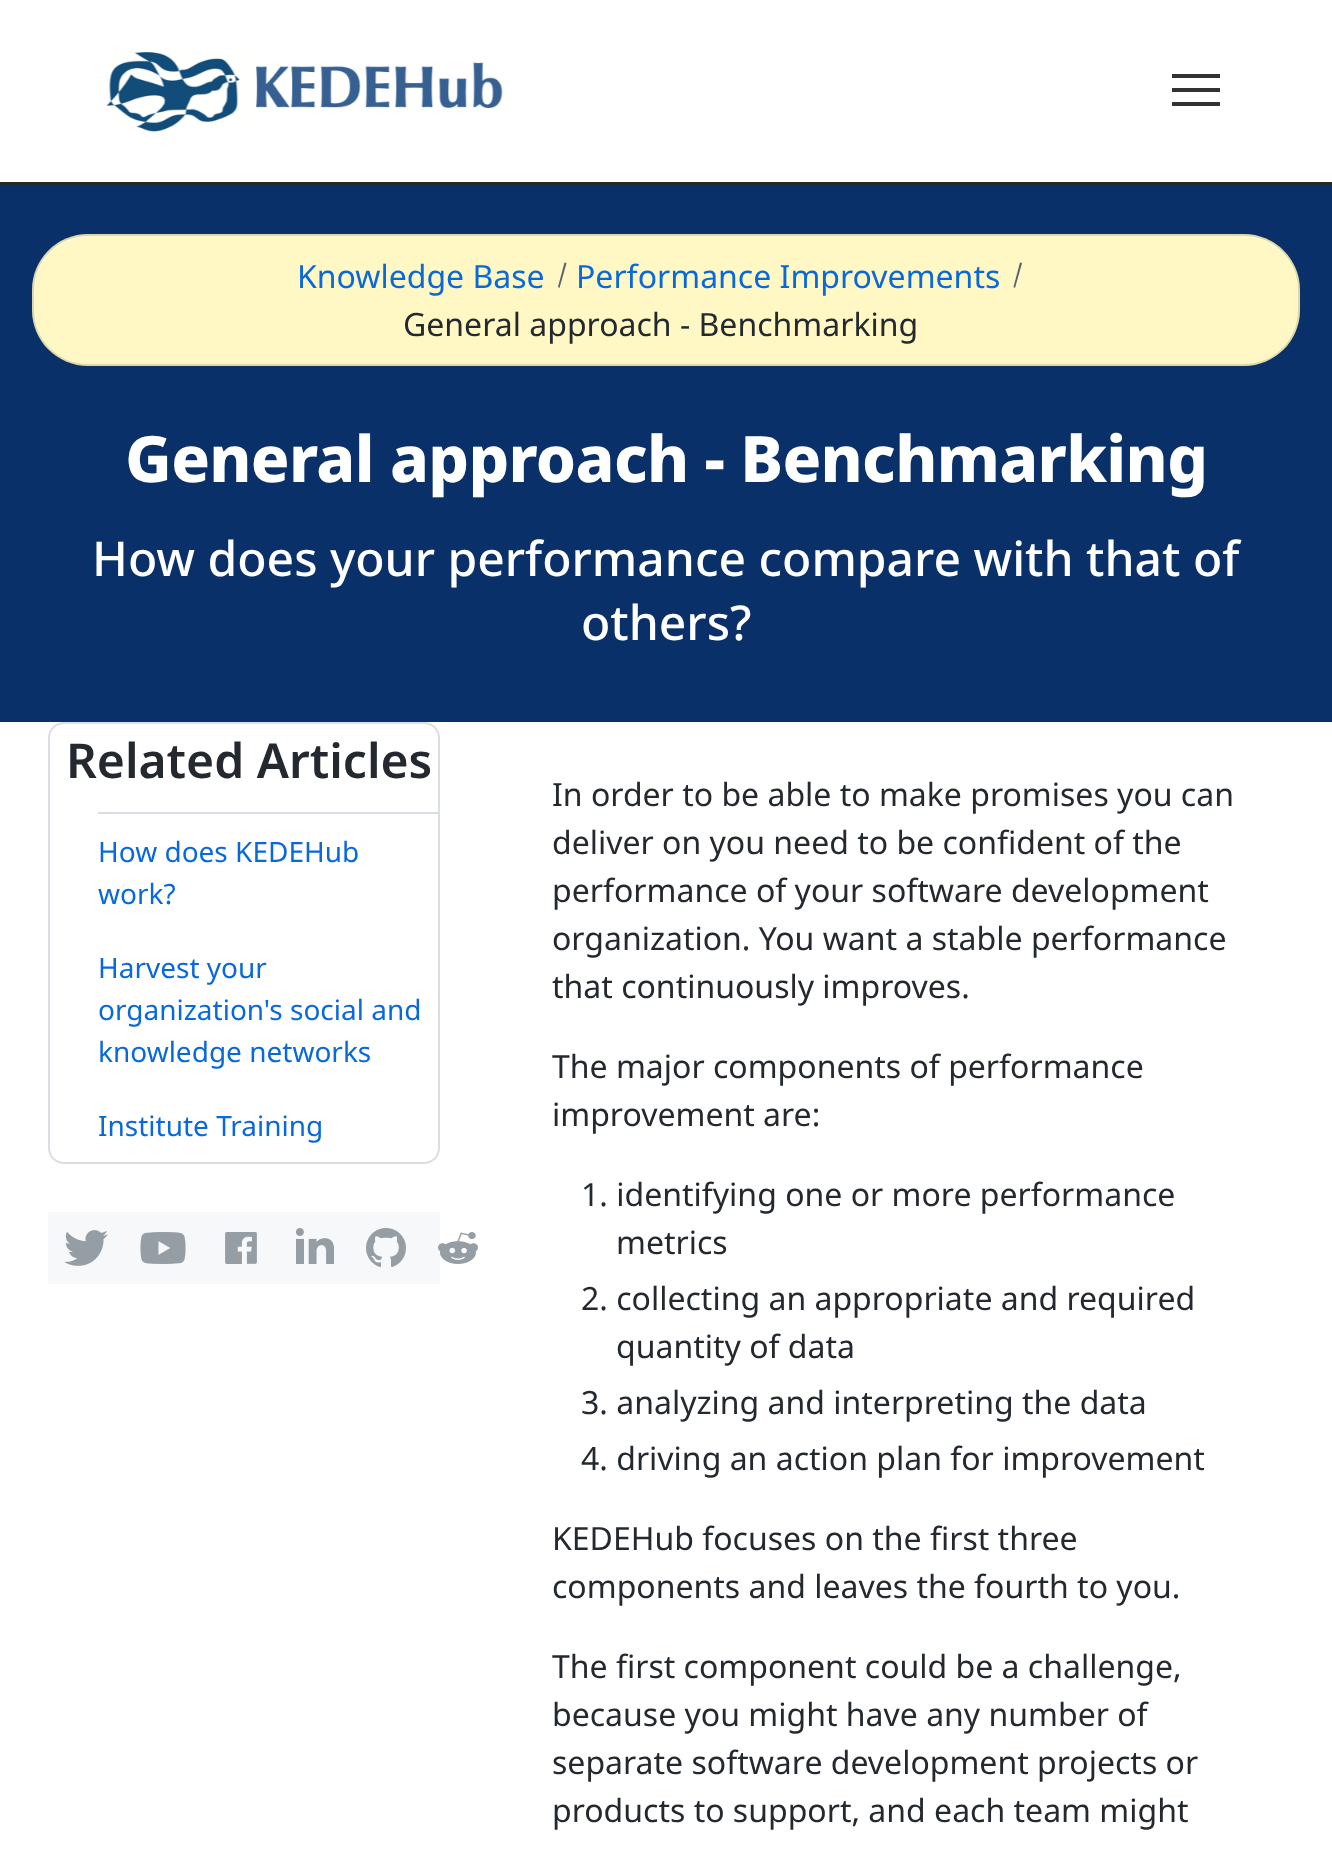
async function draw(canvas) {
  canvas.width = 1332;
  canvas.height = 1861;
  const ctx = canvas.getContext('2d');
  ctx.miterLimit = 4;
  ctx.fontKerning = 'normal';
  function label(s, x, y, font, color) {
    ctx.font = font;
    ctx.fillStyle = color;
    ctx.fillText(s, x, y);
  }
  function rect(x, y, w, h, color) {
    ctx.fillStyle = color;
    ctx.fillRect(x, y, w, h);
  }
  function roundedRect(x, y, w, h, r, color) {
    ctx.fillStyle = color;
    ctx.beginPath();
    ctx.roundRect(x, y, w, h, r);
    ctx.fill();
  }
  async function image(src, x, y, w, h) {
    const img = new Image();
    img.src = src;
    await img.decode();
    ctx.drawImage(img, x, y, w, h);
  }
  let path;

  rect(0, 0, 1332, 1861, '#fff');
  rect(0, 182, 1332, 4, '#24292f');
  await image('assets/img1.png', 106, 52, 397, 80);
  rect(1172, 74, 48, 4, '#333');
  rect(1172, 88, 48, 4, '#333');
  rect(1172, 102, 48, 4, '#333');
  rect(0, 186, 1332, 536, '#0a3069');
  ctx.fillStyle = '#0b2f66';
  path = new Path2D('M32 310V312C32 343 57 368 88 368H1244C1275 368 1300 343 1300 312V310C1300 341 1275 366 1244 366H88C57 366 32 341 32 310Z');
  ctx.fill(path);
  roundedRect(32, 234, 1268, 132, 56, '#fff8c5');
  ctx.fillStyle = '#fffad4';
  path = new Path2D('M88 238H1244C1274 238 1298 262 1298 292V290C1298 260 1274 236 1244 236H88C58 236 34 260 34 290V292C34 262 58 238 88 238Z');
  ctx.fill(path);
  ctx.beginPath();
  ctx.roundRect(33, 235, 1266, 130, 55);
  ctx.strokeStyle = '#1b1f2426';
  ctx.lineWidth = 2;
  ctx.stroke();
  label('Knowledge Base', 297, 288, '32px Noto Sans', '#0969da');
  ctx.fillStyle = '#57606a';
  path = new Path2D('M564.5 262.5L566.5 263L559.5 288L558 287Z');
  ctx.fill(path);
  label('Performance Improvements', 576, 288, '32px Noto Sans', '#0969da');
  ctx.fillStyle = '#57606a';
  path = new Path2D('M1020 262.5L1022 263L1015 288L1013.5 287Z');
  ctx.fill(path);
  label('General approach - Benchmarking', 403, 336, '32px Noto Sans', '#24292f');
  ctx.letterSpacing = '-0.65px';
  label('General approach - Benchmarking', 125, 482, '800 64px Noto Sans', '#fff');
  ctx.letterSpacing = '0px';
  label('How does your performance compare with that of', 92, 576, '500 48px Noto Sans', '#fff');
  label('others?', 581, 640, '500 48px Noto Sans', '#fff');
  ctx.beginPath();
  ctx.roundRect(49, 723, 390, 440, 15);
  ctx.strokeStyle = '#d8dee4';
  ctx.stroke();
  label('Related Articles', 66, 778, '600 48px Noto Sans', '#24292f');
  rect(98, 812, 340, 2, '#d8dee4');
  label('How does KEDEHub', 98, 862, '28px Noto Sans', '#0969da');
  label('work?', 98, 904, '28px Noto Sans', '#0969da');
  label('Harvest your', 98, 978, '28px Noto Sans', '#0969da');
  label('organization\'s social and', 98, 1020, '28px Noto Sans', '#0969da');
  label('knowledge networks', 98, 1062, '28px Noto Sans', '#0969da');
  label('Institute Training', 98, 1136, '28px Noto Sans', '#0969da');
  rect(48, 1212, 392, 72, '#f6f8fa');
  await image('assets/img2.png', 64, 1230, 44, 36);
  await image('assets/img3.png', 140, 1232, 46, 32);
  await image('assets/img4.png', 225, 1232, 32, 32);
  await image('assets/img5.png', 296, 1228, 38, 36);
  await image('assets/img6.png', 366, 1228, 40, 39);
  await image('assets/img7.png', 438, 1232, 40, 32);
  label('In order to be able to make promises you can', 552, 806, '32px Noto Sans', '#24292f');
  label('deliver on you need to be confident of the', 552, 854, '32px Noto Sans', '#24292f');
  label('performance of your software development', 552, 902, '32px Noto Sans', '#24292f');
  label('organization. You want a stable performance', 552, 950, '32px Noto Sans', '#24292f');
  label('that continuously improves.', 552, 998, '32px Noto Sans', '#24292f');
  label('The major components of performance', 552, 1078, '32px Noto Sans', '#24292f');
  label('improvement are:', 552, 1126, '32px Noto Sans', '#24292f');
  label('1. identifying one or more performance', 581, 1206, '32px Noto Sans', '#24292f');
  label('metrics', 616, 1254, '32px Noto Sans', '#24292f');
  label('2. collecting an appropriate and required', 581, 1310, '32px Noto Sans', '#24292f');
  label('quantity of data', 616, 1358, '32px Noto Sans', '#24292f');
  label('3. analyzing and interpreting the data', 581, 1414, '32px Noto Sans', '#24292f');
  label('4. driving an action plan for improvement', 581, 1470, '32px Noto Sans', '#24292f');
  label('KEDEHub focuses on the first three', 552, 1550, '32px Noto Sans', '#24292f');
  label('components and leaves the fourth to you.', 552, 1598, '32px Noto Sans', '#24292f');
  label('The first component could be a challenge,', 552, 1678, '32px Noto Sans', '#24292f');
  label('because you might have any number of', 552, 1726, '32px Noto Sans', '#24292f');
  label('separate software development projects or', 552, 1774, '32px Noto Sans', '#24292f');
  label('products to support, and each team might', 552, 1822, '32px Noto Sans', '#24292f');
}

draw(document.querySelector('canvas'));
